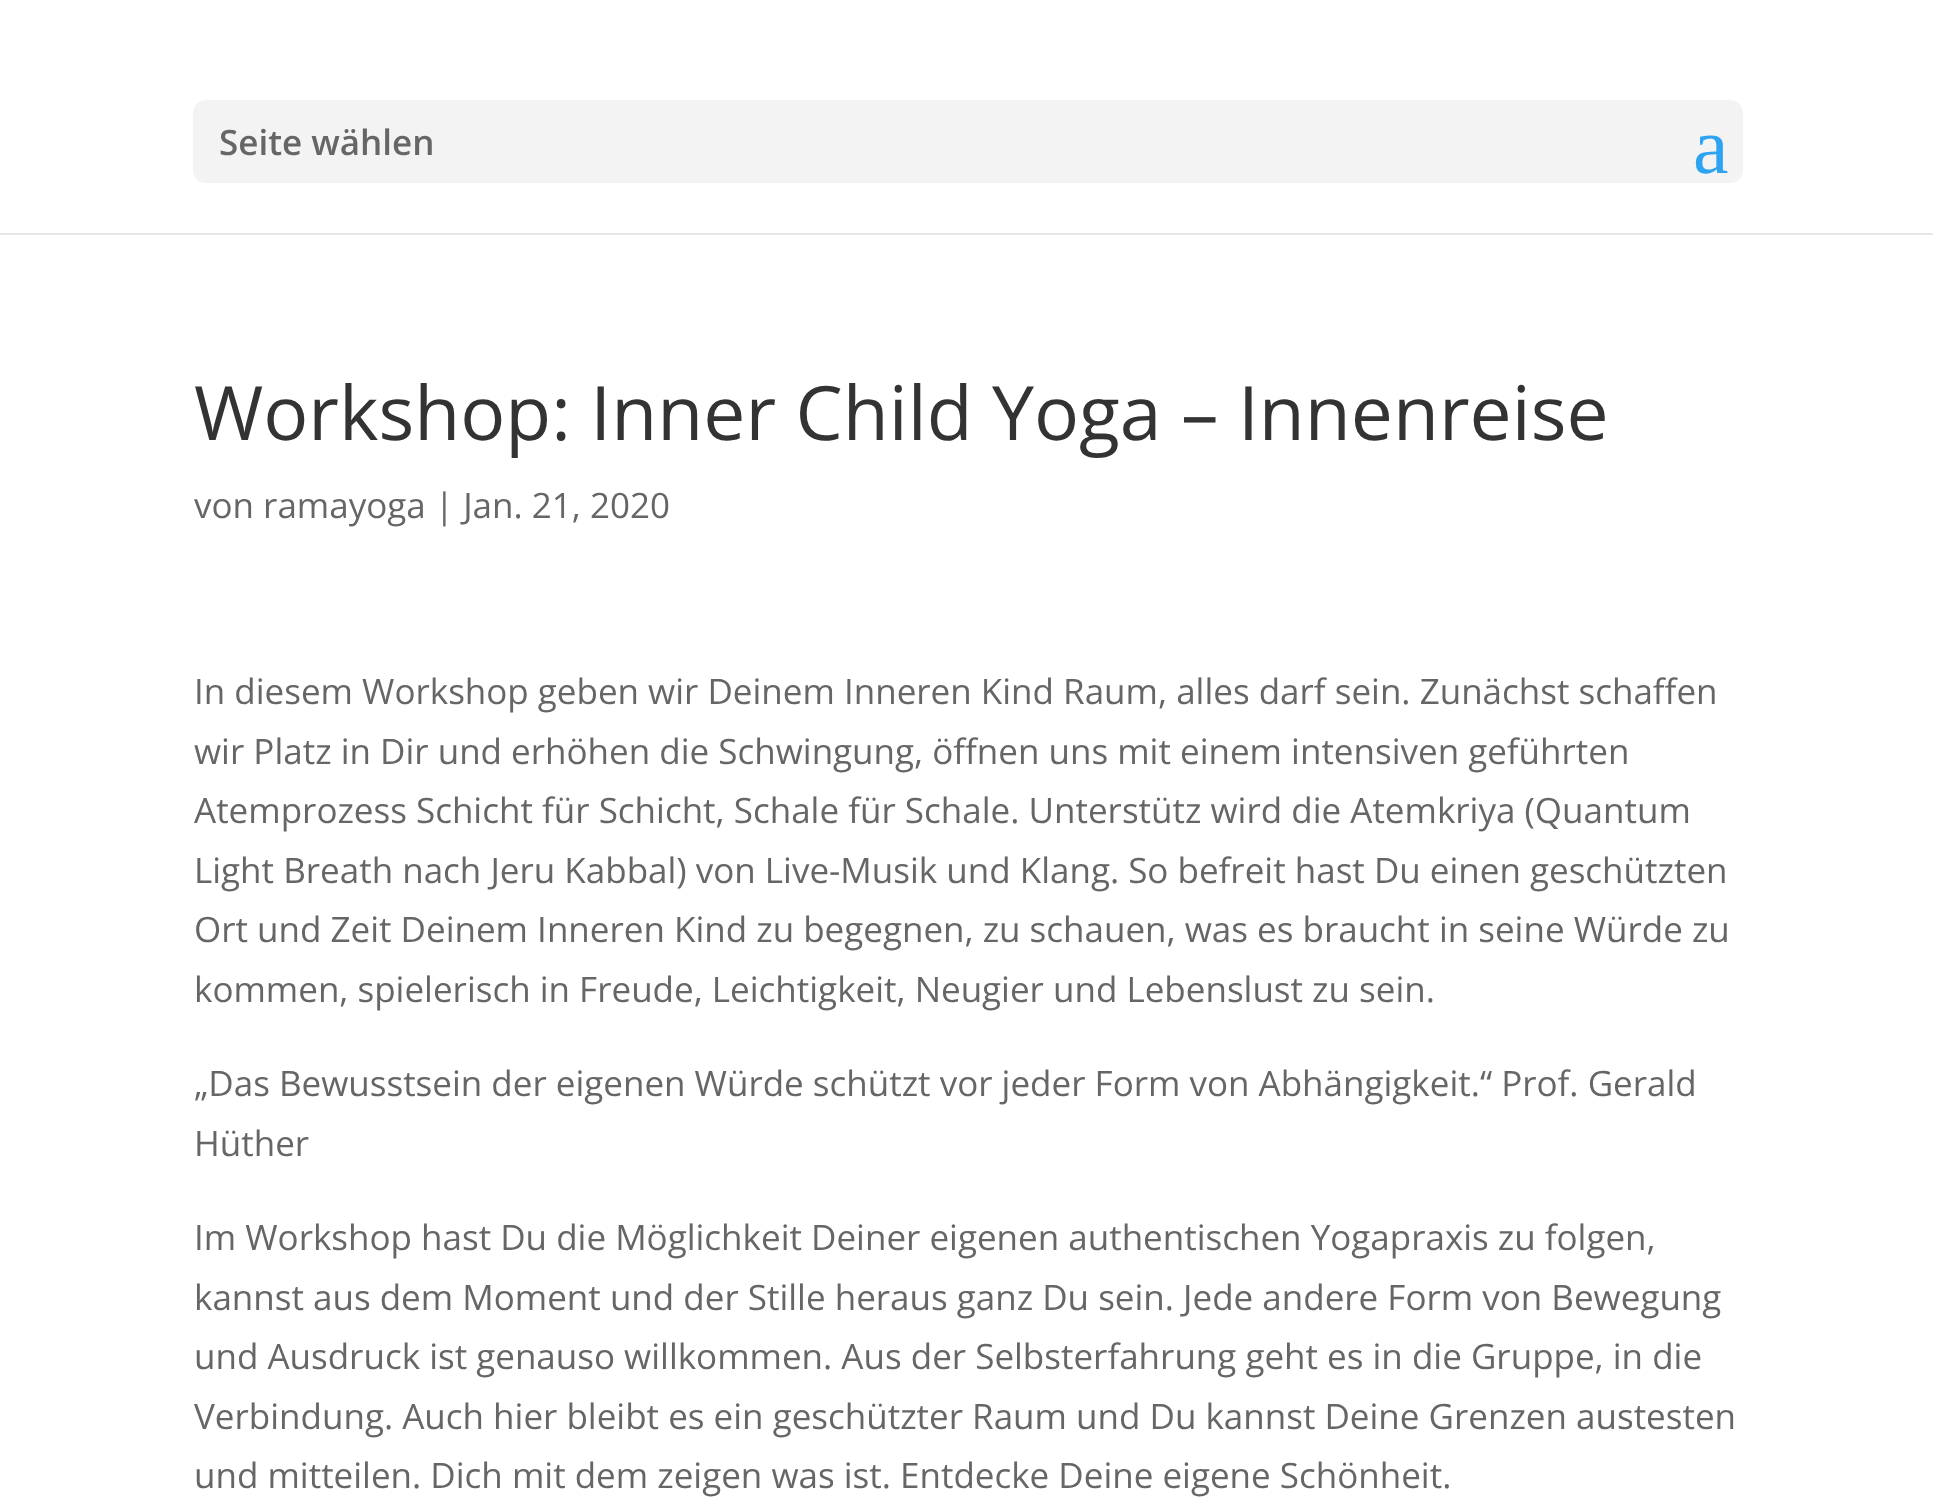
async function draw(canvas) {
  canvas.width = 1933;
  canvas.height = 1511;
  const ctx = canvas.getContext('2d');
  ctx.miterLimit = 4;
  ctx.fontKerning = 'normal';
  function label(s, x, y, font, color) {
    ctx.font = font;
    ctx.fillStyle = color;
    ctx.fillText(s, x, y);
  }
  function rect(x, y, w, h, color) {
    ctx.fillStyle = color;
    ctx.fillRect(x, y, w, h);
  }
  function roundedRect(x, y, w, h, r, color) {
    ctx.fillStyle = color;
    ctx.beginPath();
    ctx.roundRect(x, y, w, h, r);
    ctx.fill();
  }

  rect(0, 0, 1933, 1511, '#fff');
  rect(0, 233, 1933, 2, '#e6e6e6');
  roundedRect(193, 100, 1550, 83, 13, '#f3f3f3');
  label('Seite wählen', 219, 155, '600 35px Open Sans', '#666');
  label('a', 1693, 173, '80px Liberation Serif', '#2ea3f2');
  label('Workshop: Inner Child Yoga – Innenreise', 194, 440, '75px Open Sans', '#333');
  label('von ramayoga | Jan. 21, 2020', 194, 518, '35px Open Sans', '#666');
  label('In diesem Workshop geben wir Deinem Inneren Kind Raum, alles darf sein. Zunächst schaffen', 194, 704, '35px Open Sans', '#666');
  label('wir Platz in Dir und erhöhen die Schwingung, öffnen uns mit einem intensiven geführten', 194, 764, '35px Open Sans', '#666');
  label('Atemprozess Schicht für Schicht, Schale für Schale. Unterstütz wird die Atemkriya (Quantum', 194, 823, '35px Open Sans', '#666');
  label('Light Breath nach Jeru Kabbal) von Live-Musik und Klang. So befreit hast Du einen geschützten', 194, 883, '35px Open Sans', '#666');
  label('Ort und Zeit Deinem Inneren Kind zu begegnen, zu schauen, was es braucht in seine Würde zu', 194, 942, '35px Open Sans', '#666');
  label('kommen, spielerisch in Freude, Leichtigkeit, Neugier und Lebenslust zu sein.', 194, 1002, '35px Open Sans', '#666');
  label('„Das Bewusstsein der eigenen Würde schützt vor jeder Form von Abhängigkeit.“ Prof. Gerald', 194, 1096, '35px Open Sans', '#666');
  label('Hüther', 194, 1156, '35px Open Sans', '#666');
  label('Im Workshop hast Du die Möglichkeit Deiner eigenen authentischen Yogapraxis zu folgen,', 194, 1250, '35px Open Sans', '#666');
  label('kannst aus dem Moment und der Stille heraus ganz Du sein. Jede andere Form von Bewegung', 194, 1310, '35px Open Sans', '#666');
  label('und Ausdruck ist genauso willkommen. Aus der Selbsterfahrung geht es in die Gruppe, in die', 194, 1369, '35px Open Sans', '#666');
  label('Verbindung. Auch hier bleibt es ein geschützter Raum und Du kannst Deine Grenzen austesten', 194, 1429, '35px Open Sans', '#666');
  label('und mitteilen. Dich mit dem zeigen was ist. Entdecke Deine eigene Schönheit.', 194, 1488, '35px Open Sans', '#666');
}

draw(document.querySelector('canvas'));
